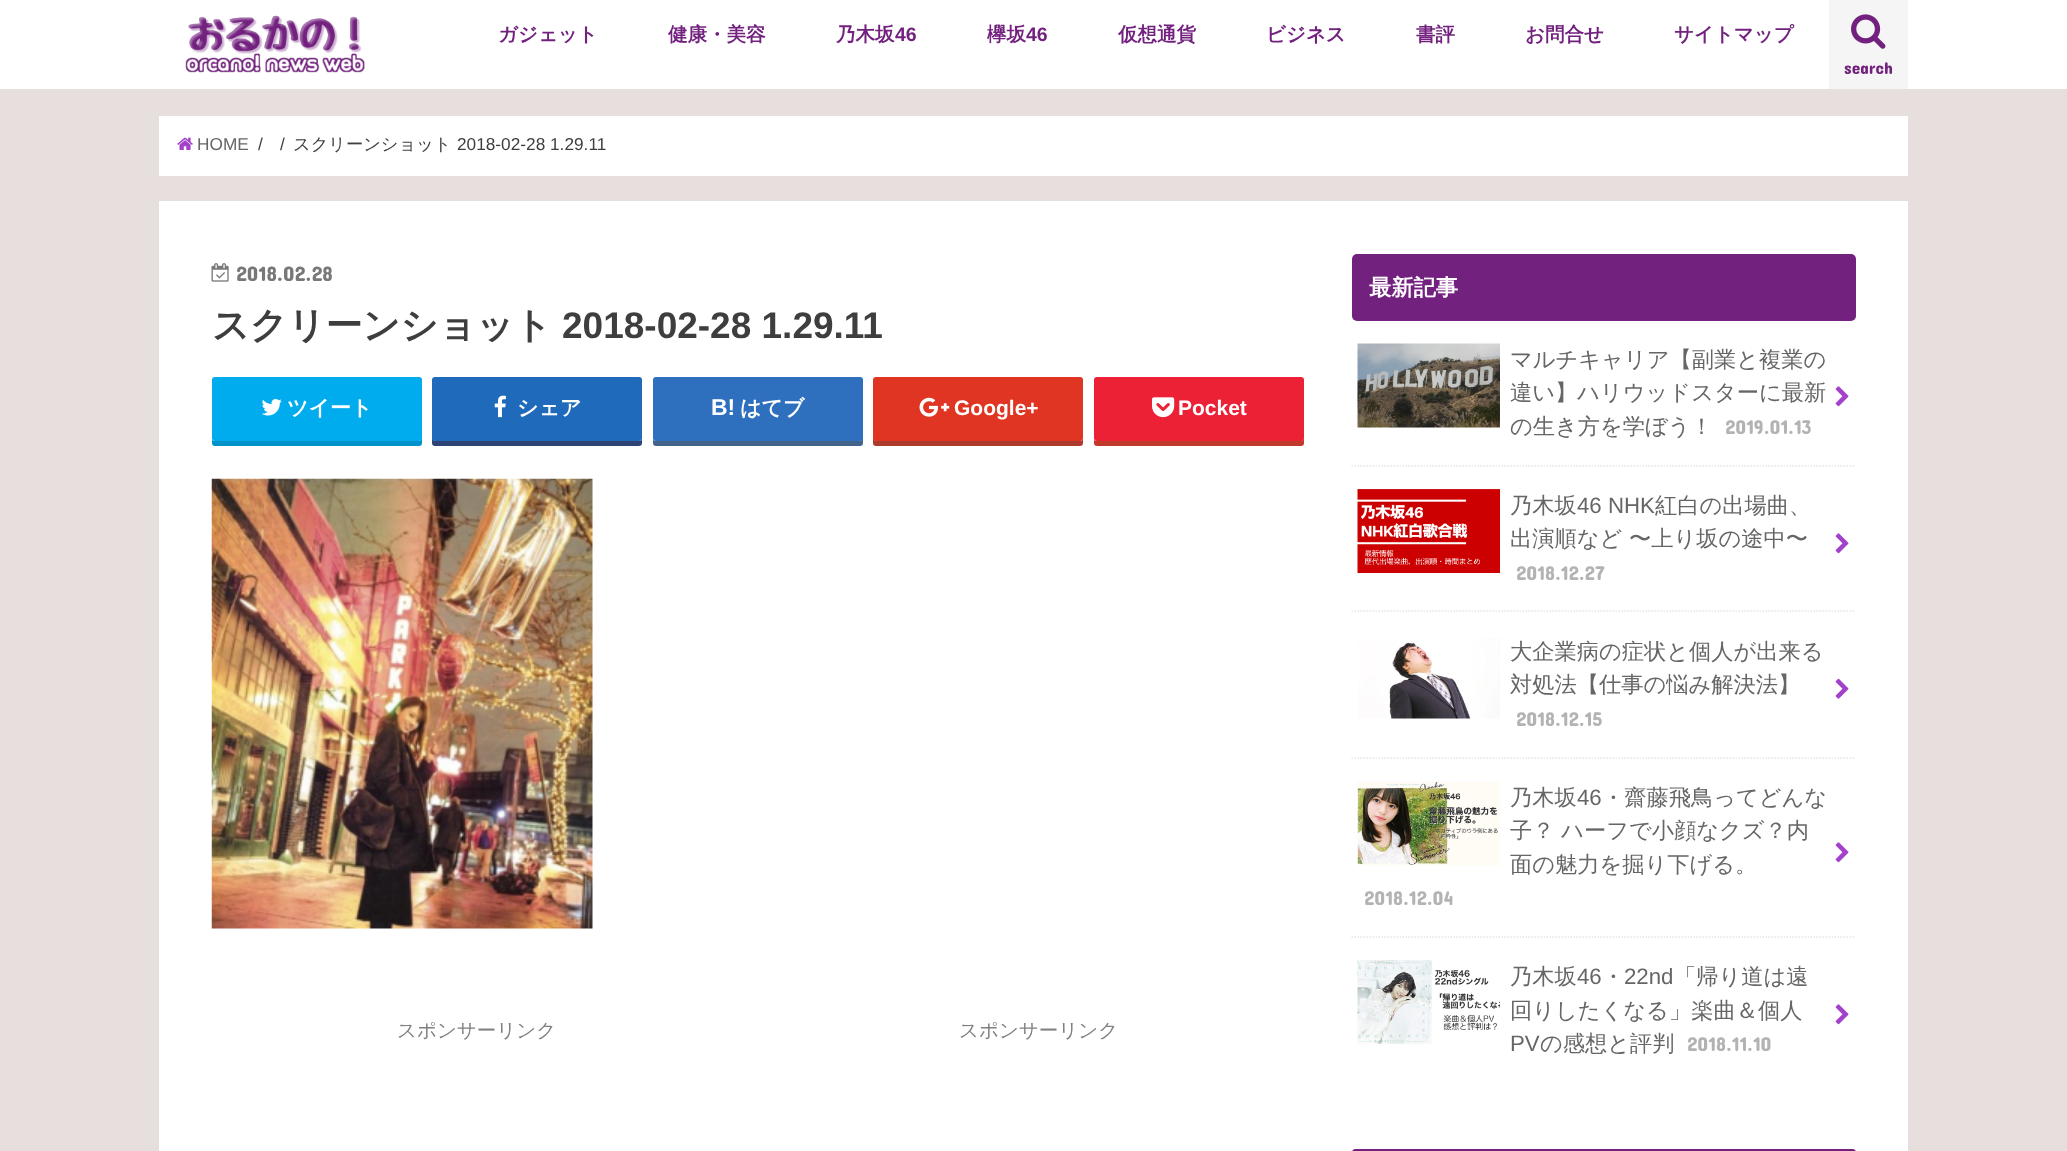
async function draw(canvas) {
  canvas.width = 2067;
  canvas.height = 1151;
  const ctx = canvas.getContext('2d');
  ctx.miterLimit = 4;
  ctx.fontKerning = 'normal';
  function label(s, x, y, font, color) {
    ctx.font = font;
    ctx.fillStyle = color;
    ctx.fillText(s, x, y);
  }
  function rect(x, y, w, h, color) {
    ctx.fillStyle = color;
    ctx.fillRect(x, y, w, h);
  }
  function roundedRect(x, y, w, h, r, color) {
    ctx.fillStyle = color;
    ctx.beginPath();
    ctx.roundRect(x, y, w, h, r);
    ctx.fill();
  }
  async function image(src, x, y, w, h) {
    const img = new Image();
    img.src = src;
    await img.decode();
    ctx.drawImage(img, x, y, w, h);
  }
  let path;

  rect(0, 0, 2067, 1151, '#e7dfdd');
  rect(0, 0, 2067, 89, '#fff');
  await image('assets/img1.png', 185, 15, 180, 58);
  label('ガジェット', 498, 41, 'bold 19.5px WenQuanYi Zen Hei', '#73217f');
  label('健康・美容', 668, 41, 'bold 19.5px WenQuanYi Zen Hei', '#73217f');
  label('乃木坂', 836, 41, 'bold 19.5px WenQuanYi Zen Hei', '#73217f');
  label('46', 895, 41, 'bold 19.5px Liberation Sans', '#73217f');
  label('欅坂', 987, 41, 'bold 19.5px WenQuanYi Zen Hei', '#73217f');
  label('46', 1026, 41, 'bold 19.5px Liberation Sans', '#73217f');
  label('仮想通貨', 1118, 41, 'bold 19.5px WenQuanYi Zen Hei', '#73217f');
  label('ビジネス', 1266, 41, 'bold 19.5px WenQuanYi Zen Hei', '#73217f');
  label('書評', 1416, 41, 'bold 19.5px WenQuanYi Zen Hei', '#73217f');
  label('お問合せ', 1525, 41, 'bold 19.5px WenQuanYi Zen Hei', '#73217f');
  label('サイトマップ', 1674, 41, 'bold 19.5px WenQuanYi Zen Hei', '#73217f');
  rect(1829, 0, 79, 89, '#f5f5f5');
  await image('assets/img2.png', 1851, 14, 35, 35);
  label('search', 1844, 74, '17.25px Concert One', '#73217f');
  rect(159, 116, 1749, 60, '#fff');
  await image('assets/img3.png', 177, 137, 16, 13);
  label('HOME', 197, 150, '17.25px Liberation Sans', '#666');
  label('/', 258, 150, '17.25px Liberation Sans', '#3e3e3e');
  label('/', 280, 150, '17.25px Liberation Sans', '#3e3e3e');
  label('スクリーンショット', 293, 150, '500 17.25px WenQuanYi Zen Hei', '#3e3e3e');
  label('2018-02-28 1.29.11', 457, 150, '17.25px Liberation Sans', '#3e3e3e');
  ctx.fillStyle = '#ddd';
  ctx.filter = 'blur(1px)';
  ctx.beginPath();
  ctx.rect(159, 201, 1749, 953);
  ctx.fill();
  ctx.filter = 'none';
  rect(159, 201, 1749, 950, '#fff');
  await image('assets/img4.png', 211, 263, 18, 19);
  label('2018.02.28', 236, 281, '21px Concert One', '#787878');
  label('スクリーンショット', 212, 338, 'bold 37px WenQuanYi Zen Hei', '#3e3e3e');
  label('2018-02-28 1.29.11', 562, 338, 'bold 37px Liberation Sans', '#3e3e3e');
  ctx.fillStyle = '#0092ca';
  path = new Path2D('M212 440V443C212 445 213 446 215 446H419C421 446 422 445 422 443V384V382V438C422 440 420 441 418 441H214C213 441 213 440 212 440Z');
  ctx.fill(path);
  roundedRect(212, 377, 210, 64, 3, '#00acee');
  await image('assets/img5.png', 261, 399, 21, 17);
  label('ツイート', 287, 415, 'bold 21px WenQuanYi Zen Hei', '#fff');
  ctx.fillStyle = '#2c4373';
  path = new Path2D('M432 438V443C432 445 433 446 435 446H639C641 446 642 445 642 443V438C642 440 641 441 639 441H435L433 440Z');
  ctx.fill(path);
  roundedRect(432, 377, 210, 64, 3, '#1f6aba');
  await image('assets/img6.png', 494, 395, 12, 23);
  label('シェア', 517, 415, 'bold 21px WenQuanYi Zen Hei', '#fff');
  ctx.fillStyle = '#43638b';
  path = new Path2D('M653 440V443C653 445 654 446 656 446H860C862 446 863 445 863 443V384L862 382V438C862 440 861 441 860 441H656C654 441 654 440 653 440Z');
  ctx.fill(path);
  roundedRect(653, 377, 210, 64, 3, '#2f70be');
  label('B!', 711, 415, 'bold 23px Liberation Sans', '#fff');
  label('はてブ', 740, 415, 'bold 21px WenQuanYi Zen Hei', '#fff');
  ctx.fillStyle = '#ad3a2d';
  path = new Path2D('M873 438V443C873 445 874 446 876 446H1080C1082 446 1083 445 1083 443V438C1083 440 1082 441 1080 441H876L874 440Z');
  ctx.fill(path);
  roundedRect(873, 377, 210, 64, 3, '#df3522');
  await image('assets/img7.png', 919, 397, 31, 20);
  label('Google+', 954, 415, 'bold 21px Liberation Sans', '#fff');
  ctx.fillStyle = '#c0392b';
  path = new Path2D('M1094 440V443C1094 445 1095 446 1097 446H1301C1303 446 1304 445 1304 443V384V382V438C1304 440 1302 441 1300 441H1096C1095 441 1095 440 1094 440Z');
  ctx.fill(path);
  roundedRect(1094, 377, 210, 64, 3, '#ec2136');
  await image('assets/img8.png', 1152, 397, 23, 21);
  label('Pocket', 1178, 415, 'bold 21px Liberation Sans', '#fff');
  await image('assets/img9.png', 211, 478, 382, 451);
  label('スポンサーリンク', 397, 1037, '500 19.5px WenQuanYi Zen Hei', '#808080');
  label('スポンサーリンク', 959, 1037, '500 19.5px WenQuanYi Zen Hei', '#808080');
  roundedRect(1352, 254, 504, 67, 5, '#73217f');
  label('最新記事', 1369, 295, 'bold 22.25px WenQuanYi Zen Hei', '#fff');
  path = new Path2D('M1351.5 466H1855.5');
  ctx.strokeStyle = '#e5e5e5';
  ctx.lineWidth = 1.5;
  ctx.setLineDash([1.5, 1.5]);
  ctx.stroke(path);
  await image('assets/img10.png', 1357, 343, 143, 85);
  label('マルチキャリア【副業と複業の', 1510, 367, '500 22.25px WenQuanYi Zen Hei', '#666');
  label('違い】ハリウッドスターに最新', 1510, 400, '500 22.25px WenQuanYi Zen Hei', '#666');
  await image('assets/img11.png', 1835, 386, 14, 21);
  label('の生き方を学ぼう！', 1510, 434, '500 22.25px WenQuanYi Zen Hei', '#666');
  label('2019.01.13', 1725, 434, '20px Concert One', '#b3b3b3');
  path = new Path2D('M1351.5 611H1855.5');
  ctx.stroke(path);
  await image('assets/img12.png', 1357, 489, 143, 84);
  label('乃木坂', 1510, 513, '500 22.25px WenQuanYi Zen Hei', '#666');
  label('46 NHK', 1577, 513, '22.25px Liberation Sans', '#666');
  label('紅白の出場曲、', 1655, 513, '500 22.25px WenQuanYi Zen Hei', '#666');
  label('出演順など 〜上り坂の途中〜', 1510, 546, '500 22.25px WenQuanYi Zen Hei', '#666');
  await image('assets/img11.png', 1835, 533, 14, 21);
  label('2018.12.27', 1516, 580, '20px Concert One', '#b3b3b3');
  path = new Path2D('M1351.5 758H1855.5');
  ctx.stroke(path);
  await image('assets/img13.png', 1358, 638, 142, 81);
  label('大企業病の症状と個人が出来る', 1510, 659, '500 22.25px WenQuanYi Zen Hei', '#666');
  label('対処法【仕事の悩み解決法】', 1510, 692, '500 22.25px WenQuanYi Zen Hei', '#666');
  await image('assets/img14.png', 1835, 678, 14, 21);
  label('2018.12.15', 1516, 726, '20px Concert One', '#b3b3b3');
  path = new Path2D('M1351.5 937H1855.5');
  ctx.stroke(path);
  await image('assets/img15.png', 1357, 781, 143, 85);
  label('乃木坂', 1510, 805, '500 22.25px WenQuanYi Zen Hei', '#666');
  label('46', 1577, 805, '22.25px Liberation Sans', '#666');
  label('・齋藤飛鳥ってどんな', 1602, 805, '500 22.25px WenQuanYi Zen Hei', '#666');
  label('子？ ハーフで小顔なクズ？内', 1510, 838, '500 22.25px WenQuanYi Zen Hei', '#666');
  label('面の魅力を掘り下げる。', 1510, 872, '500 22.25px WenQuanYi Zen Hei', '#666');
  await image('assets/img11.png', 1835, 842, 14, 21);
  label('2018.12.04', 1364, 905, '20px Concert One', '#b3b3b3');
  await image('assets/img16.png', 1357, 960, 143, 84);
  label('乃木坂', 1510, 984, '500 22.25px WenQuanYi Zen Hei', '#666');
  label('46', 1577, 984, '22.25px Liberation Sans', '#666');
  label('・', 1602, 984, '500 22.25px WenQuanYi Zen Hei', '#666');
  label('22nd', 1624, 984, '22.25px Liberation Sans', '#666');
  label('「帰り道は遠', 1674, 984, '500 22.25px WenQuanYi Zen Hei', '#666');
  label('回りしたくなる」楽曲＆個人', 1510, 1018, '500 22.25px WenQuanYi Zen Hei', '#666');
  await image('assets/img11.png', 1835, 1004, 14, 21);
  label('PV', 1510, 1051, '22.25px Liberation Sans', '#666');
  label('の感想と評判', 1540, 1051, '500 22.25px WenQuanYi Zen Hei', '#666');
  label('2018.11.10', 1687, 1051, '20px Concert One', '#b3b3b3');
  roundedRect(1352, 1149, 504, 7, 5, '#73217f');
}

draw(document.querySelector('canvas'));
